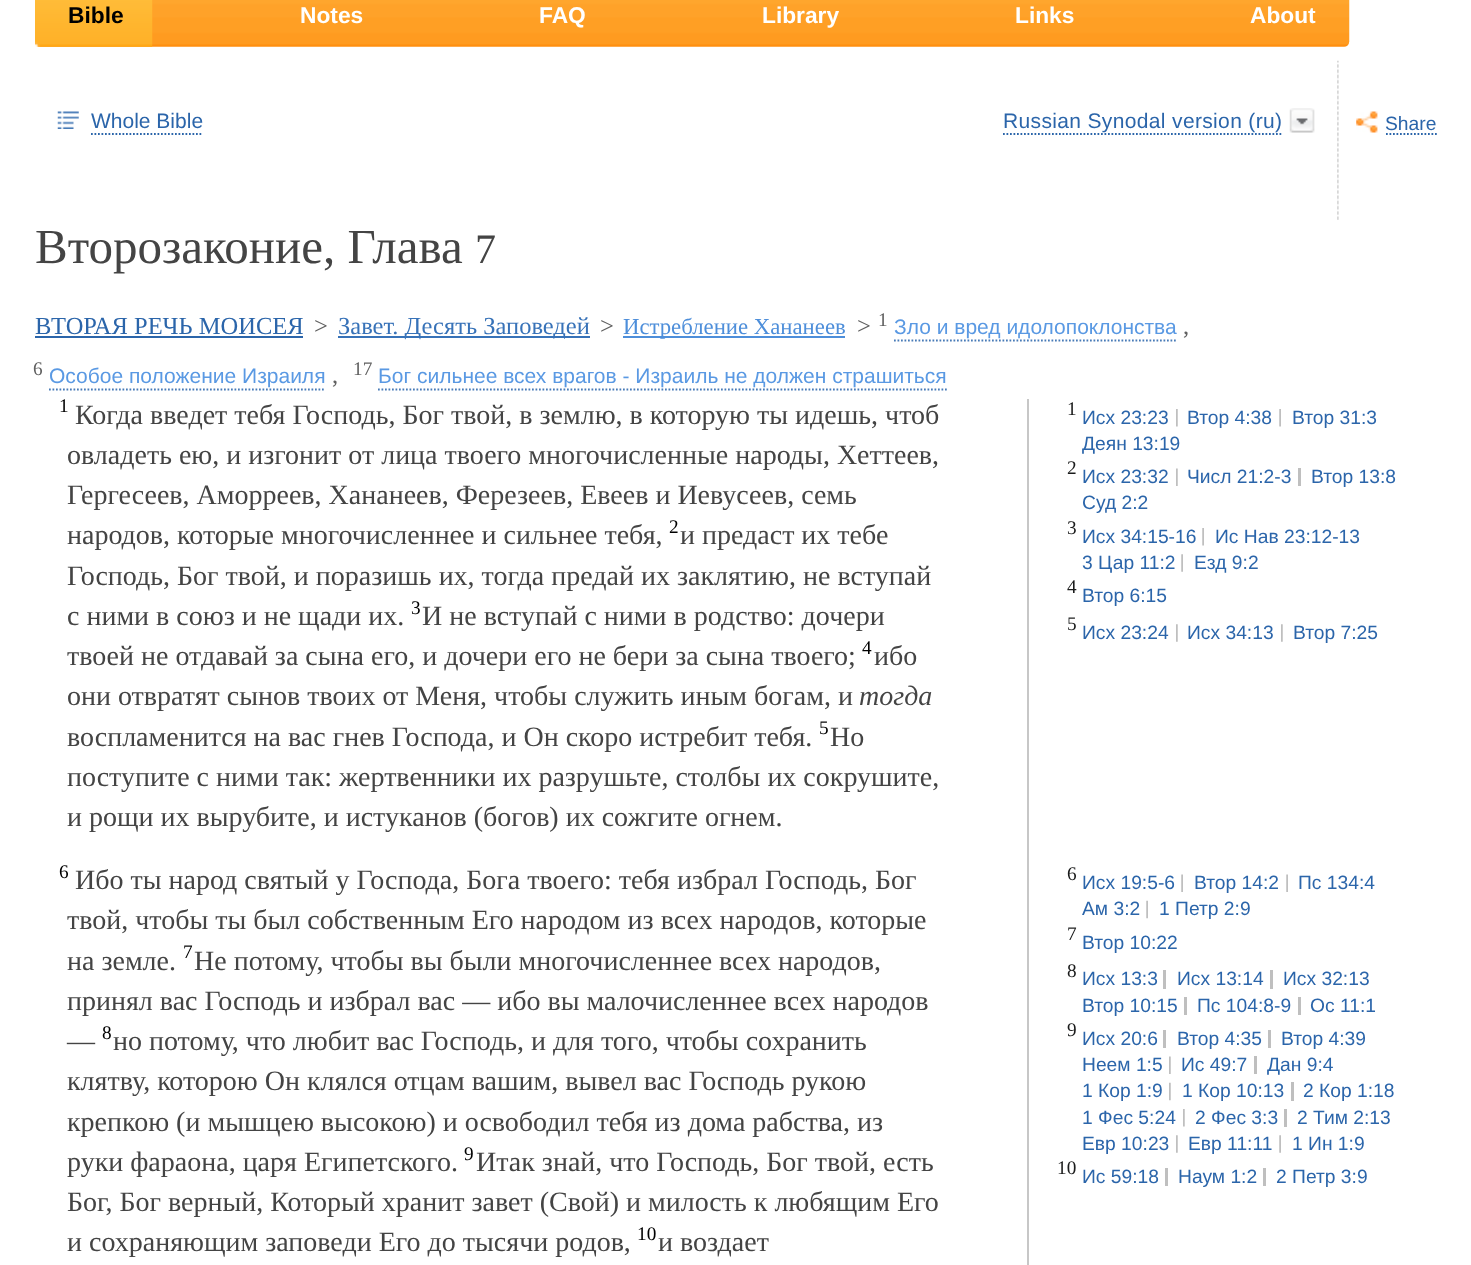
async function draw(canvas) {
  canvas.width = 1471;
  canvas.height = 1265;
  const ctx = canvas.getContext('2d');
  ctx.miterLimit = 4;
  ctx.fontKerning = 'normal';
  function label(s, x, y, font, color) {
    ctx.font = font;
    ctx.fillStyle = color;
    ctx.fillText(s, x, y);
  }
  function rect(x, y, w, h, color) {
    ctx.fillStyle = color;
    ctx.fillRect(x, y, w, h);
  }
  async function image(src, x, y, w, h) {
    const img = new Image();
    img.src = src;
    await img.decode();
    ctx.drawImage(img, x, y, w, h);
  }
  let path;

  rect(0, 0, 1471, 1265, '#fff');
  await image('assets/img1.png', 37, 0, 1313, 47);
  await image('assets/img2.png', 35, 0, 118, 47);
  label('Bible', 68, 23, 'bold 22.75px Liberation Sans', '#000');
  label('Notes', 300, 23, 'bold 22.75px Liberation Sans', '#fff');
  label('FAQ', 539, 23, 'bold 22.75px Liberation Sans', '#fff');
  label('Library', 762, 23, 'bold 22.75px Liberation Sans', '#fff');
  label('Links', 1015, 23, 'bold 22.75px Liberation Sans', '#fff');
  label('About', 1250, 23, 'bold 22.75px Liberation Sans', '#fff');
  await image('assets/img3.png', 57, 111, 22, 18);
  label('Whole Bible', 91, 128, '21px Liberation Sans', '#2b65aa');
  path = new Path2D('M91 134H203');
  ctx.strokeStyle = '#2b65aa';
  ctx.lineWidth = 1.8;
  ctx.setLineDash([1.75, 1.75]);
  ctx.stroke(path);
  ctx.letterSpacing = '0.35px';
  label('Russian Synodal version (ru)', 1003, 128, '21px Liberation Sans', '#2b65aa');
  path = new Path2D('M1003 134H1283');
  ctx.stroke(path);
  await image('assets/img4.png', 1289, 108, 26, 25);
  await image('assets/img5.png', 1337, 60, 2, 160);
  await image('assets/img6.png', 1356, 111, 22, 22);
  ctx.letterSpacing = '0px';
  label('Share', 1385, 130, '19.25px Liberation Sans', '#2b65aa');
  path = new Path2D('M1386 134H1437');
  ctx.stroke(path);
  label('Второзаконие, Глава', 35, 263, '49px Liberation Serif', '#444');
  label('7', 475, 263, '42px Liberation Serif', '#444');
  label('ВТОРАЯ РЕЧЬ МОИСЕЯ', 35, 334, '24.5px Liberation Serif', '#2b65aa');
  rect(35, 336, 268, 2, '#2b65aa');
  label('>', 314, 334, '24.5px Liberation Serif', '#616161');
  rect(338, 336, 252, 2, '#3772b8');
  label('Завет. Десять Заповедей', 338, 334, '24.5px Liberation Serif', '#3772b8');
  label('>', 600, 334, '24.5px Liberation Serif', '#616161');
  rect(623, 336, 222, 2, '#4d8eda');
  label('Истребление Хананеев', 623, 334, '22.75px Liberation Serif', '#4d8eda');
  label('>', 857, 334, '24.5px Liberation Serif', '#616161');
  label('1', 878, 326, '19.25px Liberation Serif', '#616161');
  label('Зло и вред идолопоклонства', 894, 334, '21px Liberation Sans', '#5a99e3');
  label(',', 1183, 334, '24.5px Liberation Serif', '#616161');
  path = new Path2D('M894 340.5H1176');
  ctx.strokeStyle = '#487bb7';
  ctx.stroke(path);
  label('6', 33, 375, '19.25px Liberation Serif', '#616161');
  label('Особое положение Израиля', 49, 383, '21px Liberation Sans', '#5a99e3');
  label(',', 332, 383, '24.5px Liberation Serif', '#616161');
  path = new Path2D('M49 389.5H325.5');
  ctx.stroke(path);
  label('17', 353, 375, '19.25px Liberation Serif', '#616161');
  label('Бог сильнее всех врагов - Израиль не должен страшиться', 378, 383, '21px Liberation Sans', '#5a99e3');
  path = new Path2D('M378 389.5H947');
  ctx.stroke(path);
  label('1', 59, 412, '19.25px Liberation Serif', '#000');
  label('Когда введет тебя Господь, Бог твой, в землю, в которую ты идешь, чтоб', 75, 424, '28px Liberation Serif', '#444');
  label('овладеть ею, и изгонит от лица твоего многочисленные народы, Хеттеев,', 67, 464, '28px Liberation Serif', '#444');
  label('Гергесеев, Аморреев, Хананеев, Ферезеев, Евеев и Иевусеев, семь', 67, 504, '28px Liberation Serif', '#444');
  label('народов, которые многочисленнее и сильнее тебя,', 67, 544, '28px Liberation Serif', '#444');
  label('2', 669, 533, '19.25px Liberation Serif', '#000');
  label('и предаст их тебе', 680, 544, '28px Liberation Serif', '#444');
  label('Господь, Бог твой, и поразишь их, тогда предай их заклятию, не вступай', 67, 585, '28px Liberation Serif', '#444');
  label('с ними в союз и не щади их.', 67, 625, '28px Liberation Serif', '#444');
  label('3', 411, 614, '19.25px Liberation Serif', '#000');
  label('И не вступай с ними в родство: дочери', 422, 625, '28px Liberation Serif', '#444');
  label('твоей не отдавай за сына его, и дочери его не бери за сына твоего;', 67, 665, '28px Liberation Serif', '#444');
  label('4', 862, 654, '19.25px Liberation Serif', '#000');
  label('ибо', 874, 665, '28px Liberation Serif', '#444');
  label('они отвратят сынов твоих от Меня, чтобы служить иным богам, и', 67, 705, '28px Liberation Serif', '#444');
  label('тогда', 859, 705, 'italic 28px Liberation Serif', '#444');
  label('воспламенится на вас гнев Господа, и Он скоро истребит тебя.', 67, 746, '28px Liberation Serif', '#444');
  label('5', 819, 734, '19.25px Liberation Serif', '#000');
  label('Но', 830, 746, '28px Liberation Serif', '#444');
  label('поступите с ними так: жертвенники их разрушьте, столбы их сокрушите,', 67, 786, '28px Liberation Serif', '#444');
  label('и рощи их вырубите, и истуканов (богов) их сожгите огнем.', 67, 826, '28px Liberation Serif', '#444');
  label('1', 1067, 415, '19.25px Liberation Serif', '#1a1b1b');
  label('Исх 23:23', 1082, 424, '19.25px Liberation Sans', '#2b65aa');
  await image('assets/img7.png', 1176, 409, 2, 18);
  label('Втор 4:38', 1187, 424, '19.25px Liberation Sans', '#2b65aa');
  await image('assets/img8.png', 1279, 409, 2, 18);
  label('Втор 31:3', 1292, 424, '19.25px Liberation Sans', '#2b65aa');
  ctx.save();
  ctx.beginPath();
  ctx.rect(1082, 404, 355, 53);
  ctx.clip();
  label('Деян 13:19', 1082, 450, '19.25px Liberation Sans', '#2b65aa');
  ctx.restore();
  label('2', 1067, 474, '19.25px Liberation Serif', '#1a1b1b');
  label('Исх 23:32', 1082, 483, '19.25px Liberation Sans', '#2b65aa');
  await image('assets/img9.png', 1176, 468, 2, 18);
  label('Числ 21:2-3', 1187, 483, '19.25px Liberation Sans', '#2b65aa');
  rect(1298, 468, 3, 18, '#bfbfbf');
  label('Втор 13:8', 1311, 483, '19.25px Liberation Sans', '#2b65aa');
  label('Суд 2:2', 1082, 509, '19.25px Liberation Sans', '#2b65aa');
  label('3', 1067, 534, '19.25px Liberation Serif', '#1a1b1b');
  label('Исх 34:15-16', 1082, 543, '19.25px Liberation Sans', '#2b65aa');
  await image('assets/img8.png', 1202, 528, 2, 18);
  label('Ис Нав 23:12-13', 1215, 543, '19.25px Liberation Sans', '#2b65aa');
  label('3 Цар 11:2', 1082, 569, '19.25px Liberation Sans', '#2b65aa');
  await image('assets/img10.png', 1181, 554, 2, 18);
  label('Езд 9:2', 1194, 569, '19.25px Liberation Sans', '#2b65aa');
  label('4', 1067, 593, '19.25px Liberation Serif', '#1a1b1b');
  label('Втор 6:15', 1082, 602, '19.25px Liberation Sans', '#2b65aa');
  label('5', 1067, 630, '19.25px Liberation Serif', '#1a1b1b');
  label('Исх 23:24', 1082, 639, '19.25px Liberation Sans', '#2b65aa');
  await image('assets/img11.png', 1176, 624, 2, 18);
  label('Исх 34:13', 1187, 639, '19.25px Liberation Sans', '#2b65aa');
  await image('assets/img11.png', 1281, 624, 2, 18);
  label('Втор 7:25', 1293, 639, '19.25px Liberation Sans', '#2b65aa');
  label('6', 59, 878, '19.25px Liberation Serif', '#000');
  label('Ибо ты народ святый у Господа, Бога твоего: тебя избрал Господь, Бог', 75, 889, '28px Liberation Serif', '#444');
  label('твой, чтобы ты был собственным Его народом из всех народов, которые', 67, 929, '28px Liberation Serif', '#444');
  label('на земле.', 67, 970, '28px Liberation Serif', '#444');
  label('7', 183, 958, '19.25px Liberation Serif', '#000');
  label('Не потому, чтобы вы были многочисленнее всех народов,', 194, 970, '28px Liberation Serif', '#444');
  label('принял вас Господь и избрал вас — ибо вы малочисленнее всех народов', 67, 1010, '28px Liberation Serif', '#444');
  label('—', 67, 1050, '28px Liberation Serif', '#444');
  label('8', 102, 1039, '19.25px Liberation Serif', '#000');
  label('но потому, что любит вас Господь, и для того, чтобы сохранить', 113, 1050, '28px Liberation Serif', '#444');
  label('клятву, которою Он клялся отцам вашим, вывел вас Господь рукою', 67, 1090, '28px Liberation Serif', '#444');
  label('крепкою (и мышцею высокою) и освободил тебя из дома рабства, из', 67, 1131, '28px Liberation Serif', '#444');
  label('руки фараона, царя Египетского.', 67, 1171, '28px Liberation Serif', '#444');
  label('9', 464, 1160, '19.25px Liberation Serif', '#000');
  label('Итак знай, что Господь, Бог твой, есть', 476, 1171, '28px Liberation Serif', '#444');
  label('Бог, Бог верный, Который хранит завет (Свой) и милость к любящим Его', 67, 1211, '28px Liberation Serif', '#444');
  label('и сохраняющим заповеди Его до тысячи родов,', 67, 1251, '28px Liberation Serif', '#444');
  label('10', 637, 1240, '19.25px Liberation Serif', '#000');
  label('и воздает', 658, 1251, '28px Liberation Serif', '#444');
  rect(1027, 399, 2, 866, '#c7c7c7');
  label('6', 1067, 880, '19.25px Liberation Serif', '#1a1b1b');
  label('Исх 19:5-6', 1082, 889, '19.25px Liberation Sans', '#2b65aa');
  await image('assets/img12.png', 1181, 874, 2, 18);
  label('Втор 14:2', 1194, 889, '19.25px Liberation Sans', '#2b65aa');
  await image('assets/img12.png', 1286, 874, 2, 18);
  label('Пс 134:4', 1298, 889, '19.25px Liberation Sans', '#2b65aa');
  label('Ам 3:2', 1082, 915, '19.25px Liberation Sans', '#2b65aa');
  await image('assets/img13.png', 1146, 900, 2, 19);
  label('1 Петр 2:9', 1159, 915, '19.25px Liberation Sans', '#2b65aa');
  label('7', 1067, 940, '19.25px Liberation Serif', '#1a1b1b');
  label('Втор 10:22', 1082, 949, '19.25px Liberation Sans', '#2b65aa');
  label('8', 1067, 977, '19.25px Liberation Serif', '#1a1b1b');
  label('Исх 13:3', 1082, 985, '19.25px Liberation Sans', '#2b65aa');
  rect(1163, 970, 3, 19, '#bfbfbf');
  label('Исх 13:14', 1177, 985, '19.25px Liberation Sans', '#2b65aa');
  rect(1270, 970, 3, 19, '#bfbfbf');
  label('Исх 32:13', 1283, 985, '19.25px Liberation Sans', '#2b65aa');
  label('Втор 10:15', 1082, 1012, '19.25px Liberation Sans', '#2b65aa');
  rect(1184, 997, 3, 18, '#bfbfbf');
  label('Пс 104:8-9', 1197, 1012, '19.25px Liberation Sans', '#2b65aa');
  rect(1298, 997, 3, 18, '#bfbfbf');
  label('Ос 11:1', 1310, 1012, '19.25px Liberation Sans', '#2b65aa');
  label('9', 1067, 1036, '19.25px Liberation Serif', '#1a1b1b');
  label('Исх 20:6', 1082, 1045, '19.25px Liberation Sans', '#2b65aa');
  rect(1163, 1030, 3, 18, '#bfbfbf');
  label('Втор 4:35', 1177, 1045, '19.25px Liberation Sans', '#2b65aa');
  rect(1268, 1030, 3, 18, '#bfbfbf');
  label('Втор 4:39', 1281, 1045, '19.25px Liberation Sans', '#2b65aa');
  label('Неем 1:5', 1082, 1071, '19.25px Liberation Sans', '#2b65aa');
  await image('assets/img9.png', 1169, 1056, 2, 18);
  label('Ис 49:7', 1181, 1071, '19.25px Liberation Sans', '#2b65aa');
  rect(1254, 1056, 3, 18, '#bfbfbf');
  label('Дан 9:4', 1267, 1071, '19.25px Liberation Sans', '#2b65aa');
  label('1 Кор 1:9', 1082, 1097, '19.25px Liberation Sans', '#2b65aa');
  await image('assets/img14.png', 1169, 1082, 2, 19);
  label('1 Кор 10:13', 1182, 1097, '19.25px Liberation Sans', '#2b65aa');
  rect(1291, 1082, 3, 19, '#bfbfbf');
  label('2 Кор 1:18', 1303, 1097, '19.25px Liberation Sans', '#2b65aa');
  label('1 Фес 5:24', 1082, 1124, '19.25px Liberation Sans', '#2b65aa');
  await image('assets/img7.png', 1183, 1109, 2, 18);
  label('2 Фес 3:3', 1195, 1124, '19.25px Liberation Sans', '#2b65aa');
  rect(1284, 1109, 3, 18, '#bfbfbf');
  label('2 Тим 2:13', 1297, 1124, '19.25px Liberation Sans', '#2b65aa');
  label('Евр 10:23', 1082, 1150, '19.25px Liberation Sans', '#2b65aa');
  await image('assets/img11.png', 1176, 1135, 2, 18);
  label('Евр 11:11', 1188, 1150, '19.25px Liberation Sans', '#2b65aa');
  await image('assets/img10.png', 1279, 1135, 2, 18);
  label('1 Ин 1:9', 1292, 1150, '19.25px Liberation Sans', '#2b65aa');
  label('10', 1057, 1174, '19.25px Liberation Serif', '#1a1b1b');
  label('Ис 59:18', 1082, 1183, '19.25px Liberation Sans', '#2b65aa');
  rect(1165, 1168, 3, 18, '#bfbfbf');
  label('Наум 1:2', 1178, 1183, '19.25px Liberation Sans', '#2b65aa');
  rect(1263, 1168, 3, 18, '#bfbfbf');
  label('2 Петр 3:9', 1276, 1183, '19.25px Liberation Sans', '#2b65aa');
}

draw(document.querySelector('canvas'));
